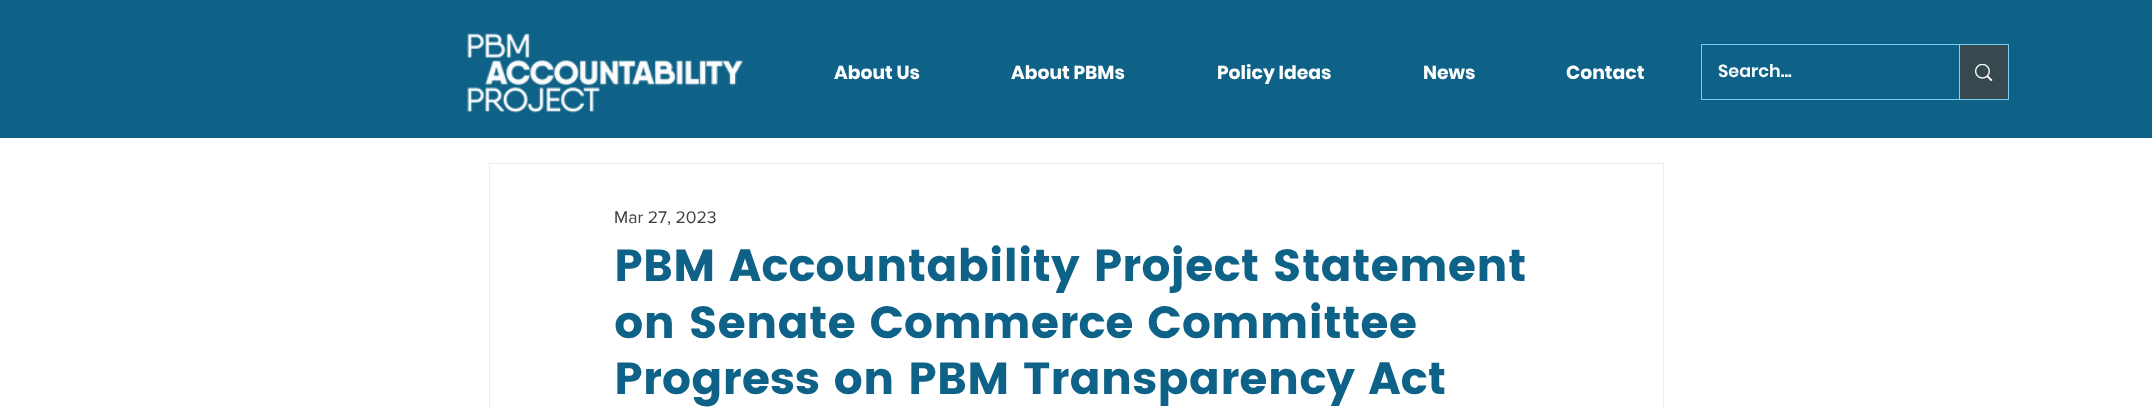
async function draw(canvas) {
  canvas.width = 2152;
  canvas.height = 408;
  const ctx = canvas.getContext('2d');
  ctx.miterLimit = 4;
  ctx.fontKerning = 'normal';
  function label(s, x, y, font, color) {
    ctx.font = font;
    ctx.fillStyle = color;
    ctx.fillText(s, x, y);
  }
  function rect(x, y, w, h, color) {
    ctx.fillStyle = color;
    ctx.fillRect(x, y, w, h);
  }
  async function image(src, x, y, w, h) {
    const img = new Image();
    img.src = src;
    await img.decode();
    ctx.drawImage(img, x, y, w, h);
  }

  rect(0, 0, 2152, 408, '#fff');
  rect(0, 0, 2152, 138, '#0f6287');
  await image('assets/img1.png', 467, 33, 276, 80);
  label('About Us', 834, 79, 'bold 18.75px Poppins', '#fff');
  label('About PBMs', 1011, 79, 'bold 18.75px Poppins', '#fff');
  label('Policy Ideas', 1217, 79, 'bold 18.75px Poppins', '#fff');
  label('News', 1423, 79, 'bold 18.75px Poppins', '#fff');
  label('Contact', 1566, 79, 'bold 18.75px Poppins', '#fff');
  ctx.strokeStyle = '#7fccf7';
  ctx.strokeRect(1701.5, 44.5, 307, 55);
  label('Search...', 1718, 77, '600 17.5px Poppins', '#fff');
  rect(1960, 45, 48, 54, '#37484f');
  rect(1959, 45, 1, 54, '#7fccf7');
  await image('assets/img2.png', 1975, 64, 18, 17);
  ctx.strokeStyle = '#eeecec';
  ctx.strokeRect(489.5, 163.5, 1174, 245);
  label('Mar 27, 2023', 614, 223, '17.5px "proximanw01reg"', '#414141');
  label('PBM Accountability Project Statement', 614, 281, 'bold 45px "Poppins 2"', '#0f6287');
  label('on Senate Commerce Committee', 614, 338, 'bold 45px "Poppins 2"', '#0f6287');
  label('Progress on PBM Transparency Act', 614, 394, 'bold 45px "Poppins 2"', '#0f6287');
}

draw(document.querySelector('canvas'));
